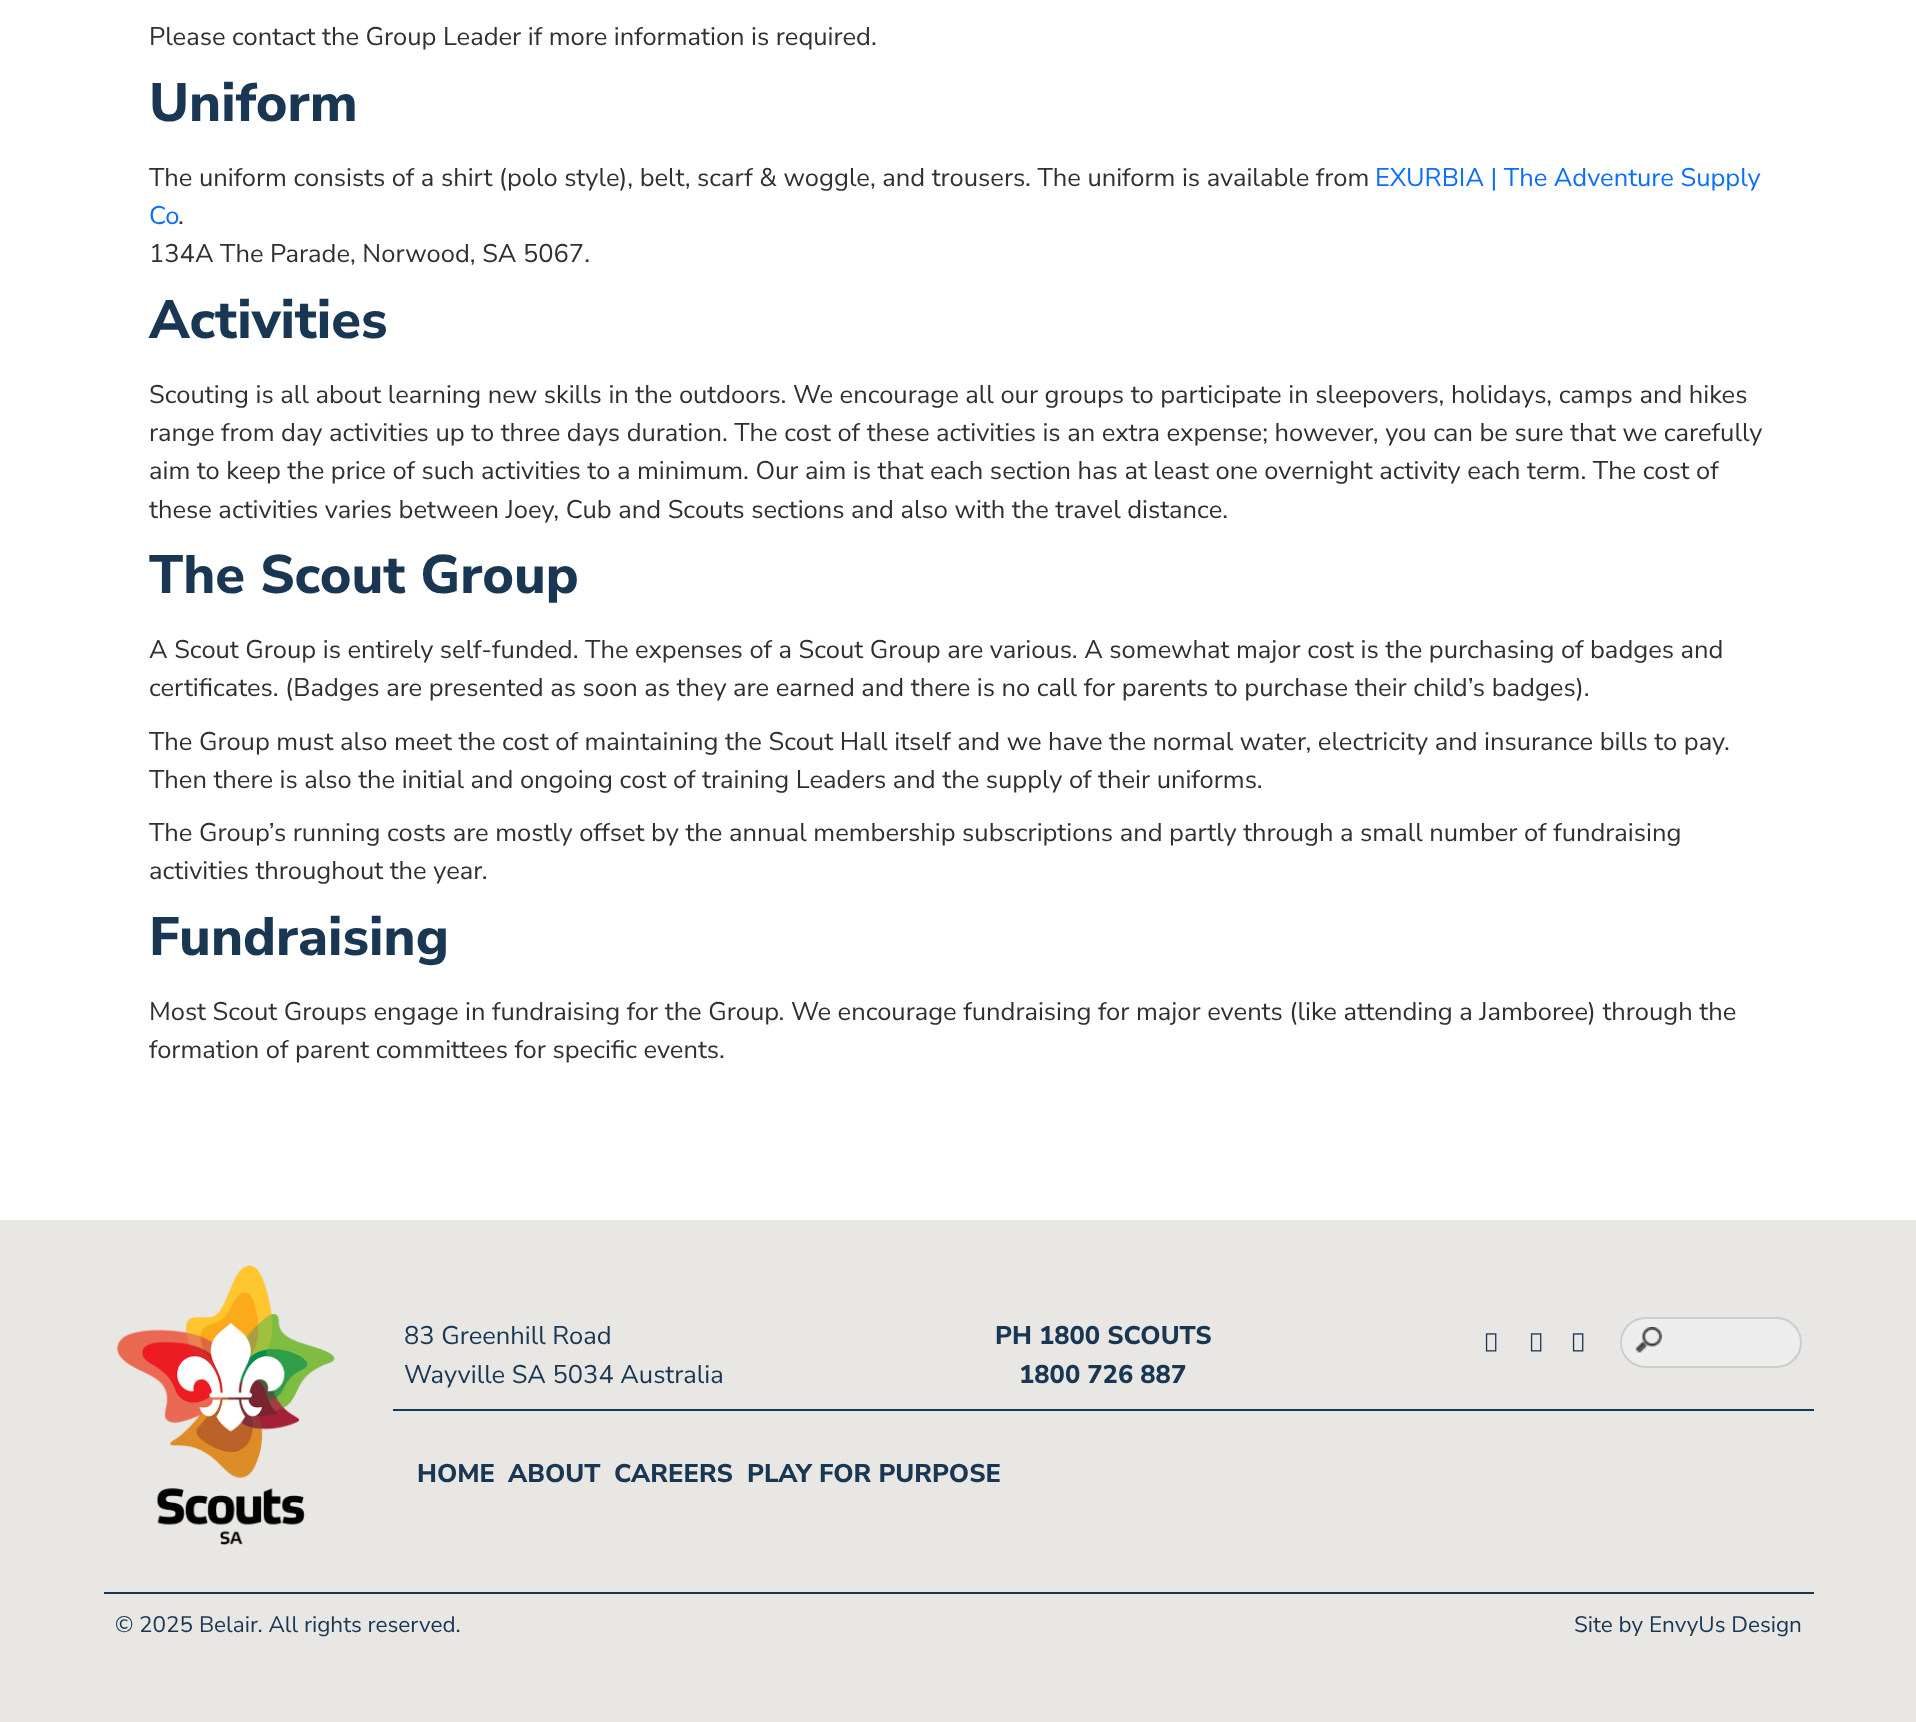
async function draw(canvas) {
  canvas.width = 1916;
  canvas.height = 1722;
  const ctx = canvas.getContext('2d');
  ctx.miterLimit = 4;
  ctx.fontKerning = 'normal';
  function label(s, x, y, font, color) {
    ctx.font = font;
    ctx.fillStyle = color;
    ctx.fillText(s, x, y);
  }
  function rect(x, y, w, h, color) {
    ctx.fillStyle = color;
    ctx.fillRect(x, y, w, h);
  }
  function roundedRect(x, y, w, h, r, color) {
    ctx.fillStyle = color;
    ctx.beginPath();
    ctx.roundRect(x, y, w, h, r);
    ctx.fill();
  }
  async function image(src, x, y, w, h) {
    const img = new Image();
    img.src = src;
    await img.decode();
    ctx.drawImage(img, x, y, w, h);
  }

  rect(0, 0, 1916, 1722, '#fff');
  label('Please contact the Group Leader if more information is required.', 149, 45, '25.5px Nunito Sans', '#303030');
  label('Uniform', 149, 121, '800 54px Nunito Sans', '#193653');
  label('The uniform consists of a shirt (polo style), belt, scarf & woggle, and trousers. The uniform is available from', 149, 186, '25.5px Nunito Sans', '#303030');
  label('EXURBIA | The Adventure Supply', 1375, 186, '25.5px Nunito Sans', '#0d6efd');
  label('Co', 149, 224, '25.5px Nunito Sans', '#0d6efd');
  label('.', 178, 224, '25.5px Nunito Sans', '#303030');
  label('134A The Parade, Norwood, SA 5067.', 149, 262, '25.5px Nunito Sans', '#303030');
  label('Activities', 149, 338, '800 54px Nunito Sans', '#193653');
  label('Scouting is all about learning new skills in the outdoors. We encourage all our groups to participate in sleepovers, holidays, camps and hikes', 149, 403, '25.5px Nunito Sans', '#303030');
  label('range from day activities up to three days duration. The cost of these activities is an extra expense; however, you can be sure that we carefully', 149, 441, '25.5px Nunito Sans', '#303030');
  label('aim to keep the price of such activities to a minimum. Our aim is that each section has at least one overnight activity each term. The cost of', 149, 479, '25.5px Nunito Sans', '#303030');
  label('these activities varies between Joey, Cub and Scouts sections and also with the travel distance.', 149, 518, '25.5px Nunito Sans', '#303030');
  label('The Scout Group', 149, 593, '800 54px Nunito Sans', '#193653');
  label('A Scout Group is entirely self-funded. The expenses of a Scout Group are various. A somewhat major cost is the purchasing of badges and', 149, 658, '25.5px Nunito Sans', '#303030');
  label('certificates. (Badges are presented as soon as they are earned and there is no call for parents to purchase their child’s badges).', 149, 696, '25.5px Nunito Sans', '#303030');
  label('The Group must also meet the cost of maintaining the Scout Hall itself and we have the normal water, electricity and insurance bills to pay.', 149, 750, '25.5px Nunito Sans', '#303030');
  label('Then there is also the initial and ongoing cost of training Leaders and the supply of their uniforms.', 149, 788, '25.5px Nunito Sans', '#303030');
  label('The Group’s running costs are mostly offset by the annual membership subscriptions and partly through a small number of fundraising', 149, 841, '25.5px Nunito Sans', '#303030');
  label('activities throughout the year.', 149, 879, '25.5px Nunito Sans', '#303030');
  label('Fundraising', 149, 955, '800 54px Nunito Sans', '#193653');
  label('Most Scout Groups engage in fundraising for the Group. We encourage fundraising for major events (like attending a Jamboree) through the', 149, 1020, '25.5px Nunito Sans', '#303030');
  label('formation of parent committees for specific events.', 149, 1058, '25.5px Nunito Sans', '#303030');
  rect(0, 1220, 1916, 502, '#e8e7e3');
  await image('assets/img1.png', 116, 1265, 219, 280);
  label('83 Greenhill Road', 404, 1344, '25.5px Nunito Sans', '#193653');
  label('Wayville SA 5034 Australia', 404, 1383, '25.5px Nunito Sans', '#193653');
  label('PH 1800 SCOUTS', 995, 1344, '800 25.5px Nunito Sans', '#193653');
  label('1800 726 887', 1019, 1383, '800 25.5px Nunito Sans', '#193653');
  await image('assets/img2.png', 1485, 1333, 12, 19);
  await image('assets/img2.png', 1530, 1333, 12, 19);
  await image('assets/img2.png', 1572, 1333, 12, 19);
  roundedRect(1620, 1317, 182, 51, 25.5, '#ededed');
  await image('assets/img3.png', 1635, 1327, 27, 27);
  ctx.beginPath();
  ctx.roundRect(1621, 1318, 180, 49, 24.5);
  ctx.strokeStyle = '#ccc';
  ctx.lineWidth = 2;
  ctx.stroke();
  rect(393, 1409, 1421, 2, '#193653');
  label('HOME', 417, 1482, '800 25.5px Nunito Sans', '#193653');
  label('ABOUT', 508, 1482, '800 25.5px Nunito Sans', '#193653');
  label('CAREERS', 614, 1482, '800 25.5px Nunito Sans', '#193653');
  label('PLAY FOR PURPOSE', 747, 1482, '800 25.5px Nunito Sans', '#193653');
  rect(104, 1592, 1710, 2, '#193653');
  label('© 2025 Belair. All rights reserved.', 115, 1632, '22.5px Nunito Sans', '#193653');
  label('Site by EnvyUs Design', 1574, 1632, '22.5px Nunito Sans', '#193653');
}

draw(document.querySelector('canvas'));
